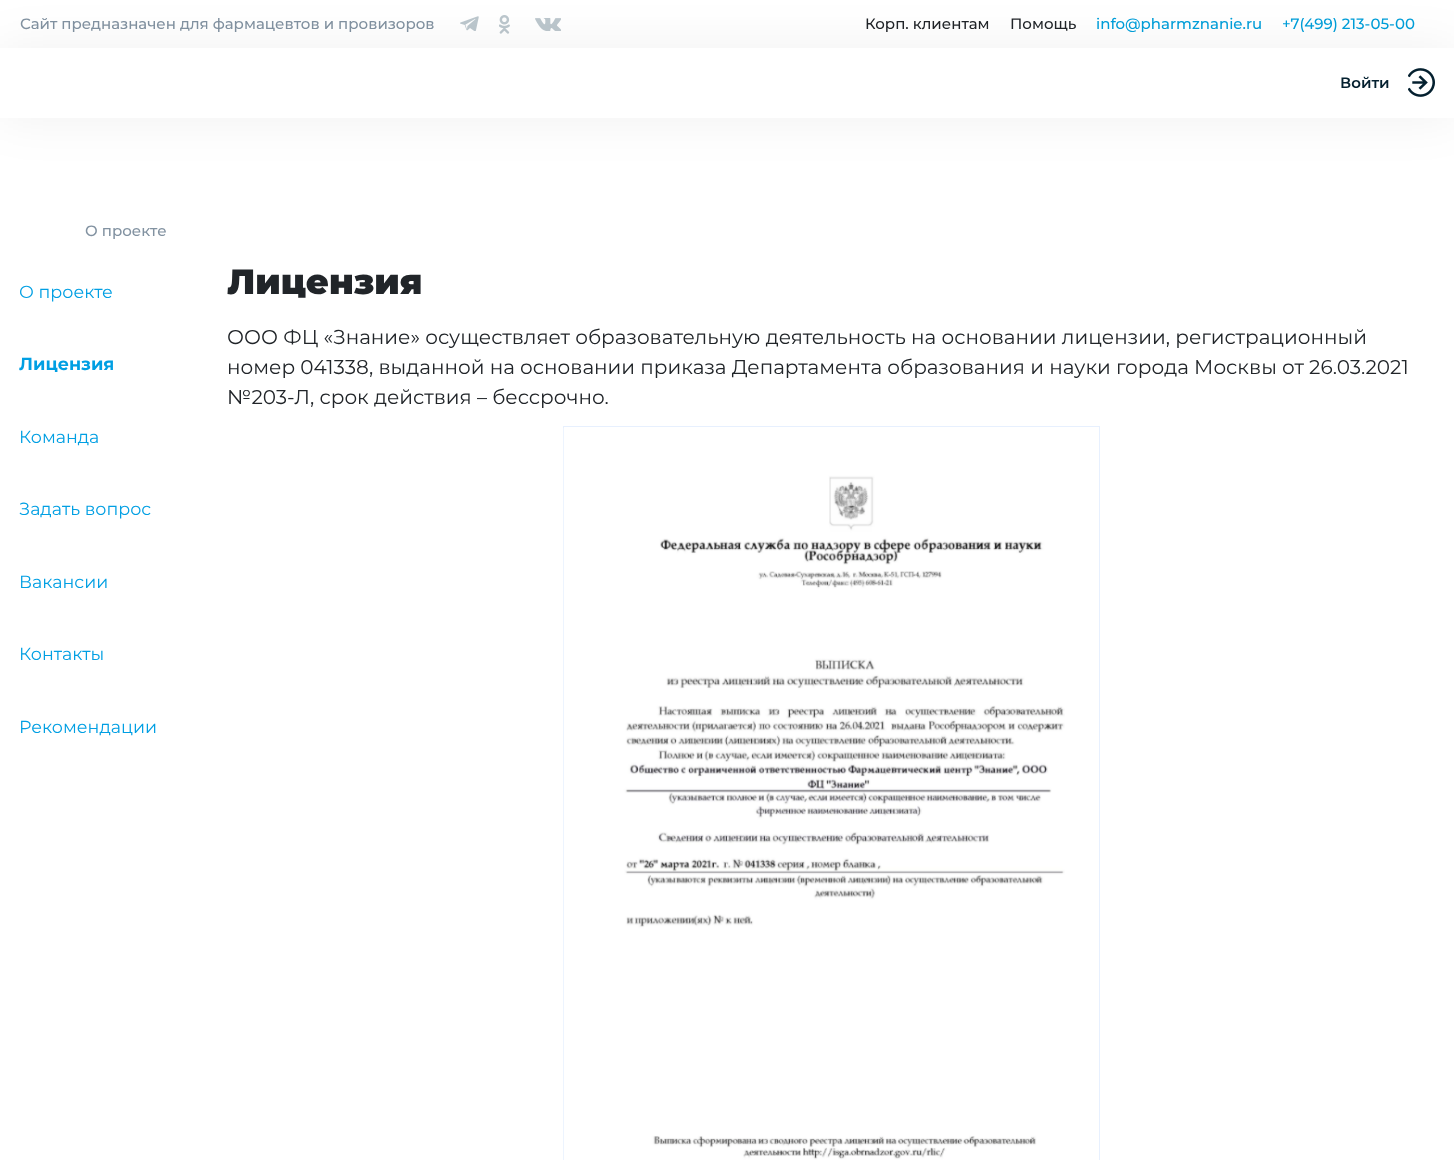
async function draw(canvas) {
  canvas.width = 1454;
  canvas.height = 1160;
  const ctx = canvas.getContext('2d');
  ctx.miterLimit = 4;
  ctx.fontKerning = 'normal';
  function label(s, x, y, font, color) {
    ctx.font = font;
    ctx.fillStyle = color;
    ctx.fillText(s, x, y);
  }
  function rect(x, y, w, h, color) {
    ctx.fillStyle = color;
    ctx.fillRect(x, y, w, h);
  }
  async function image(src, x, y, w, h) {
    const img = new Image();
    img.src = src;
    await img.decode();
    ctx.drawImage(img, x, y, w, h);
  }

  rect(0, 0, 1454, 1160, '#fff');
  label('Сайт предназначен для фармацевтов и провизоров', 20, 29, '500 15px Montserrat', '#8292a1');
  await image('assets/img1.png', 460, 16, 19, 15);
  await image('assets/img2.png', 499, 15, 11, 19);
  await image('assets/img3.png', 535, 18, 26, 13);
  label('Корп. клиентам', 865, 29, '500 15px Montserrat', '#212529');
  label('Помощь', 1010, 29, '500 15px Montserrat', '#212529');
  label('info@pharmznanie.ru', 1096, 29, '500 15px Montserrat', '#009fda');
  label('+7(499) 213-05-00', 1282, 29, '500 15px Montserrat', '#009fda');
  ctx.fillStyle = '#050c140f';
  ctx.filter = 'blur(25px)';
  ctx.beginPath();
  ctx.rect(0, 48, 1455, 70);
  ctx.fill();
  ctx.filter = 'none';
  rect(0, 48, 1454, 70, '#fff');
  label('Войти', 1340, 88, '600 15px Montserrat', '#04202f');
  await image('assets/img4.png', 1408, 68, 27, 29);
  label('О проекте', 85, 236, '500 15px Montserrat', '#8292a1');
  label('О проекте', 19, 298, '17.5px Montserrat', '#009fe3');
  label('Лицензия', 19, 370, 'bold 17.5px Montserrat', '#009fe3');
  label('Команда', 19, 443, '17.5px Montserrat', '#009fe3');
  label('Задать вопрос', 19, 515, '17.5px Montserrat', '#009fe3');
  label('Вакансии', 19, 588, '17.5px Montserrat', '#009fe3');
  label('Контакты', 19, 660, '17.5px Montserrat', '#009fe3');
  label('Рекомендации', 19, 733, '17.5px Montserrat', '#009fe3');
  label('Лицензия', 227, 294, '900 35px Montserrat', '#212529');
  label('ООО ФЦ «Знание» осуществляет образовательную деятельность на основании лицензии, регистрационный', 227, 344, '20px Montserrat', '#212529');
  label('номер 041338, выданной на основании приказа Департамента образования и науки города Москвы от 26.03.2021', 227, 374, '20px Montserrat', '#212529');
  label('№203-Л, срок действия – бессрочно.', 227, 404, '20px Montserrat', '#212529');
  ctx.strokeStyle = '#e7f0fe';
  ctx.strokeRect(563.5, 426.5, 536, 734);
  await image('assets/img5.png', 563, 428, 502, 732);
}

draw(document.querySelector('canvas'));
